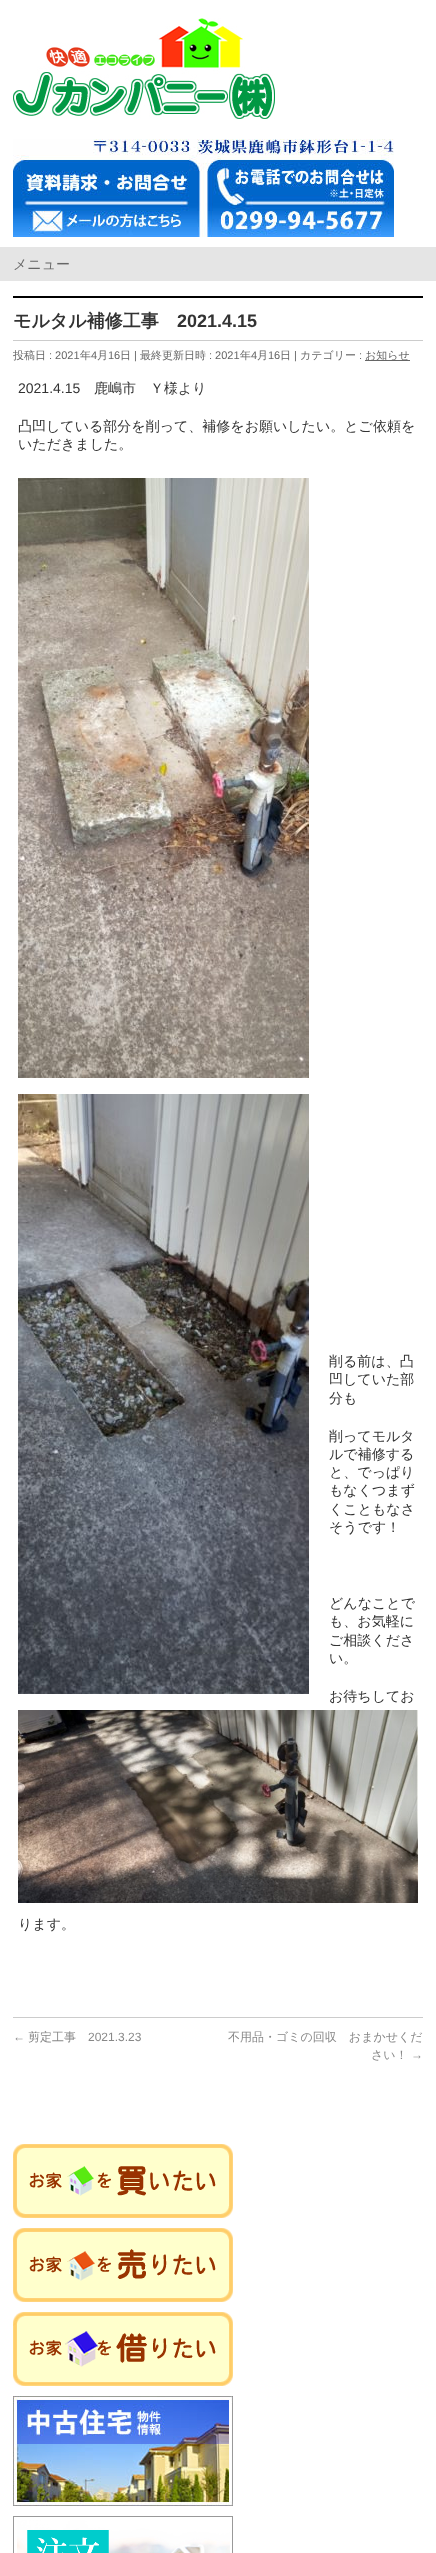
async function draw(canvas) {
  canvas.width = 436;
  canvas.height = 2553;
  const ctx = canvas.getContext('2d');
  ctx.miterLimit = 4;
  ctx.fontKerning = 'normal';
  function label(s, x, y, font, color) {
    ctx.font = font;
    ctx.fillStyle = color;
    ctx.fillText(s, x, y);
  }
  function rect(x, y, w, h, color) {
    ctx.fillStyle = color;
    ctx.fillRect(x, y, w, h);
  }
  async function image(src, x, y, w, h) {
    const img = new Image();
    img.src = src;
    await img.decode();
    ctx.drawImage(img, x, y, w, h);
  }

  rect(0, 0, 436, 2553, '#fff');
  await image('assets/img1.png', 13, 18, 262, 101);
  await image('assets/img2.png', 13, 139, 381, 98);
  rect(0, 247, 436, 34, '#e5e5e5');
  label('メニュー', 13, 269, '500 14px WenQuanYi Zen Hei', '#666');
  rect(13, 296, 410, 2, '#000');
  rect(13, 340, 410, 1, '#ccc');
  label('モルタル補修工事', 13, 327, 'bold 18px WenQuanYi Zen Hei', '#333');
  label('2021.4.15', 177, 327, 'bold 18px Liberation Sans', '#333');
  label('投稿日', 13, 359, '500 11px WenQuanYi Zen Hei', '#666');
  label(': 2021', 49, 359, '11px Liberation Sans', '#666');
  label('年', 80, 359, '500 11px WenQuanYi Zen Hei', '#666');
  label('4', 91, 359, '11px Liberation Sans', '#666');
  label('月', 97, 359, '500 11px WenQuanYi Zen Hei', '#666');
  label('16', 108, 359, '11px Liberation Sans', '#666');
  label('日', 120, 359, '500 11px WenQuanYi Zen Hei', '#666');
  label('|', 134, 359, '11px Liberation Sans', '#666');
  label('最終更新日時', 140, 359, '500 11px WenQuanYi Zen Hei', '#666');
  label(': 2021', 209, 359, '11px Liberation Sans', '#666');
  label('年', 240, 359, '500 11px WenQuanYi Zen Hei', '#666');
  label('4', 251, 359, '11px Liberation Sans', '#666');
  label('月', 257, 359, '500 11px WenQuanYi Zen Hei', '#666');
  label('16', 268, 359, '11px Liberation Sans', '#666');
  label('日', 280, 359, '500 11px WenQuanYi Zen Hei', '#666');
  label('|', 294, 359, '11px Liberation Sans', '#666');
  label('カテゴリー', 300, 359, '500 11px WenQuanYi Zen Hei', '#666');
  label(':', 359, 359, '11px Liberation Sans', '#666');
  rect(365, 360, 45, 1, '#666');
  label('お知らせ', 365, 359, '500 11px WenQuanYi Zen Hei', '#666');
  label('2021.4.15', 18, 393, '14px Liberation Sans', '#333');
  label('鹿嶋市　Ｙ様より', 94, 393, '500 14px WenQuanYi Zen Hei', '#333');
  label('凸凹している部分を削って、補修をお願いしたい。とご依頼を', 18, 431, '500 14px WenQuanYi Zen Hei', '#333');
  label('いただきました。', 18, 449, '500 14px WenQuanYi Zen Hei', '#333');
  await image('assets/img3.png', 18, 478, 291, 600);
  await image('assets/img4.png', 18, 1094, 291, 600);
  await image('assets/img5.png', 18, 1710, 400, 193);
  label('削る前は、凸', 329, 1366, '500 14px WenQuanYi Zen Hei', '#333');
  label('凹していた部', 329, 1384, '500 14px WenQuanYi Zen Hei', '#333');
  label('分も', 329, 1403, '500 14px WenQuanYi Zen Hei', '#333');
  label('削ってモルタ', 329, 1441, '500 14px WenQuanYi Zen Hei', '#333');
  label('ルで補修する', 329, 1459, '500 14px WenQuanYi Zen Hei', '#333');
  label('と、でっぱり', 329, 1477, '500 14px WenQuanYi Zen Hei', '#333');
  label('もなくつまず', 329, 1495, '500 14px WenQuanYi Zen Hei', '#333');
  label('くこともなさ', 329, 1514, '500 14px WenQuanYi Zen Hei', '#333');
  label('そうです！', 329, 1532, '500 14px WenQuanYi Zen Hei', '#333');
  label('どんなことで', 329, 1608, '500 14px WenQuanYi Zen Hei', '#333');
  label('も、お気軽に', 329, 1626, '500 14px WenQuanYi Zen Hei', '#333');
  label('ご相談くださ', 329, 1645, '500 14px WenQuanYi Zen Hei', '#333');
  label('い。', 329, 1663, '500 14px WenQuanYi Zen Hei', '#333');
  label('お待ちしてお', 329, 1701, '500 14px WenQuanYi Zen Hei', '#333');
  label('ります。', 18, 1929, '500 14px WenQuanYi Zen Hei', '#333');
  rect(13, 2017, 410, 1, '#ccc');
  label('←', 13, 2041, '12px Liberation Sans', '#888');
  label('剪定工事', 28, 2041, '500 12px WenQuanYi Zen Hei', '#888');
  label('2021.3.23', 88, 2041, '12px Liberation Sans', '#888');
  label('不用品・ゴミの回収　おまかせくだ', 228, 2041, '500 12px WenQuanYi Zen Hei', '#888');
  label('さい！', 371, 2059, '500 12px WenQuanYi Zen Hei', '#888');
  label('→', 411, 2059, '12px Liberation Sans', '#888');
  await image('assets/img6.png', 13, 2144, 220, 74);
  await image('assets/img7.png', 13, 2228, 220, 74);
  await image('assets/img8.png', 13, 2312, 220, 74);
  await image('assets/img9.png', 13, 2396, 220, 110);
  await image('assets/img10.png', 13, 2516, 220, 37);
}

draw(document.querySelector('canvas'));
